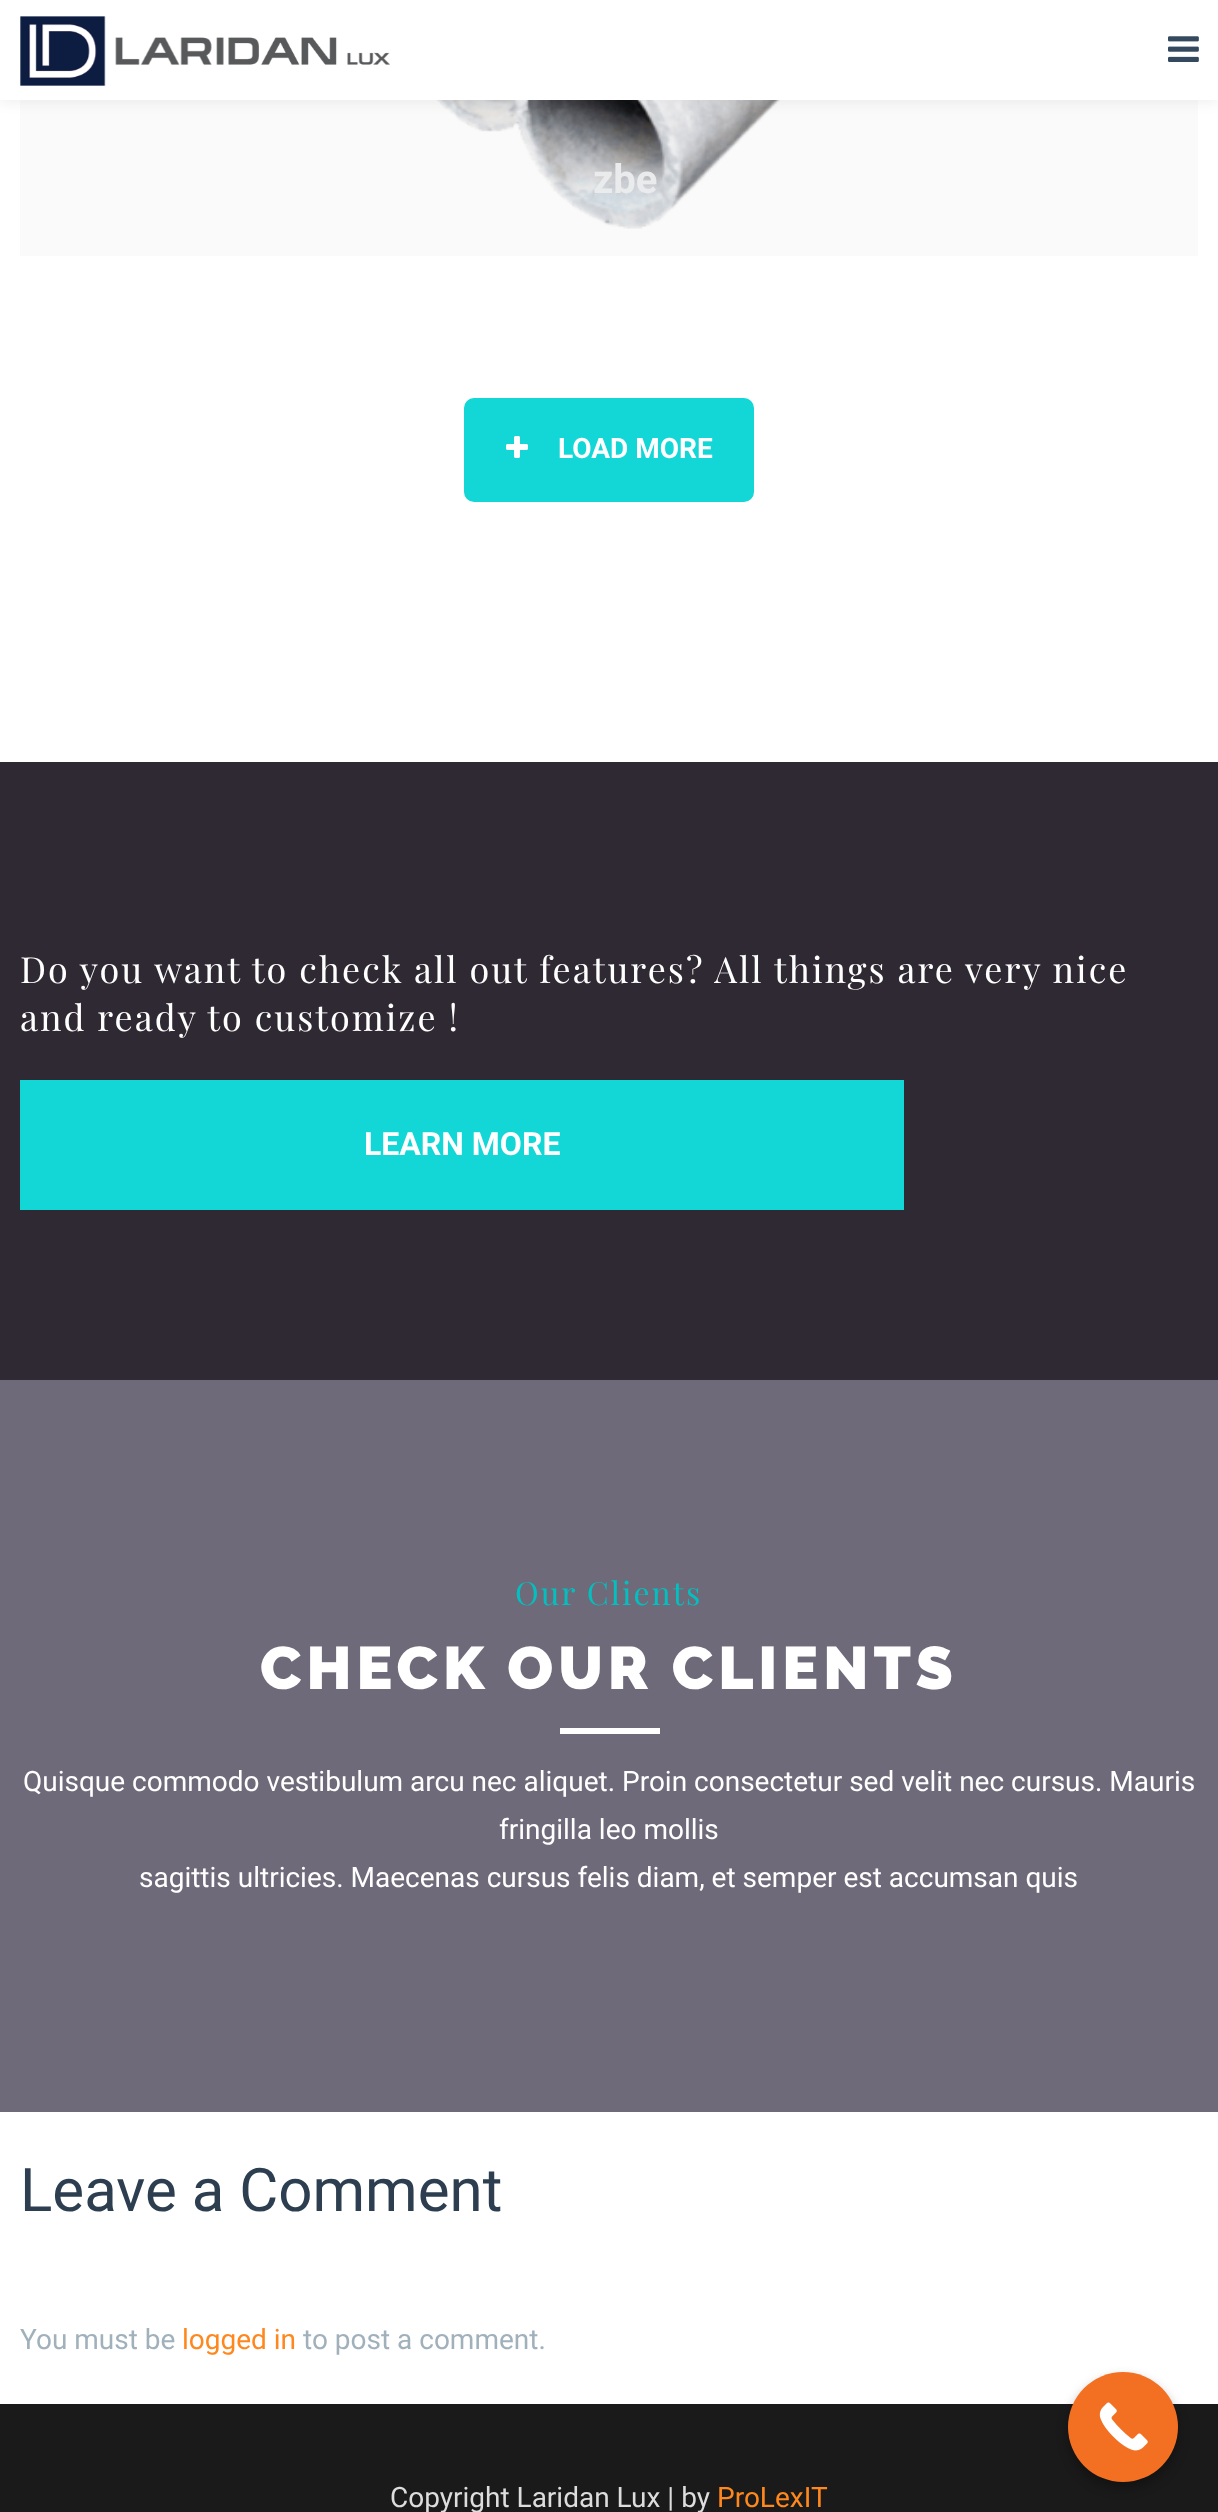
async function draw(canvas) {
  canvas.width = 1218;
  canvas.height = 2512;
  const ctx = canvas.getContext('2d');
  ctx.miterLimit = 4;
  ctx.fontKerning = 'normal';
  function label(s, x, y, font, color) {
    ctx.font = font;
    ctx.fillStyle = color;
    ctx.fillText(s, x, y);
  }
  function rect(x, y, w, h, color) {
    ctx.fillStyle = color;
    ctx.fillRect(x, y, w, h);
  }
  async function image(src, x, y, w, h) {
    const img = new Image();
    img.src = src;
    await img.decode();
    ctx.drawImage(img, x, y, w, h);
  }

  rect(0, 0, 1218, 2512, '#fff');
  rect(20, 100, 1178, 156, '#fafafa');
  await image('assets/img3.png', 435, 100, 346, 129);
  ctx.fillStyle = '#0000000d';
  ctx.filter = 'blur(6px)';
  ctx.beginPath();
  ctx.rect(0, 4, 1218, 100);
  ctx.fill();
  ctx.filter = 'none';
  rect(0, 0, 1218, 100, '#fff');
  await image('assets/img1.png', 20, 16, 370, 70);
  await image('assets/img2.png', 1168, 36, 31, 26);
  label('zbe', 593, 193, 'bold 40px Roboto', '#eaebec');
  ctx.fillStyle = '#13d7d7';
  ctx.beginPath();
  ctx.roundRect(465, 399, 288, 102, 9);
  ctx.fill();
  ctx.strokeStyle = '#13d7d7';
  ctx.lineWidth = 2;
  ctx.stroke();
  await image('assets/img4.png', 506, 436, 22, 22);
  label('LOAD MORE', 558, 458, 'bold 28px Roboto', '#fff');
  rect(0, 762, 1218, 618, '#2f2933');
  ctx.letterSpacing = '2px';
  label('Do you want to check all out features? All things are very nice', 20, 983, '36px Playfair Display', '#fff');
  label('and ready to customize !', 20, 1031, '36px Playfair Display', '#fff');
  rect(20, 1080, 884, 130, '#13d7d7');
  ctx.letterSpacing = '0px';
  label('LEARN MORE', 364, 1155, 'bold 32px Roboto', '#fff');
  rect(0, 1380, 1218, 732, '#6e6a79');
  ctx.letterSpacing = '2px';
  label('Our Clients', 515, 1605, '32px Playfair Display', '#04bfbf');
  ctx.letterSpacing = '5px';
  label('CHECK OUR CLIENTS', 260, 1689, '900 60px Raleway', '#fff');
  rect(560, 1728, 100, 6, '#fff');
  ctx.letterSpacing = '0px';
  label('Quisque commodo vestibulum arcu nec aliquet. Proin consectetur sed velit nec cursus. Mauris', 23, 1791, '28px Roboto', '#fff');
  label('fringilla leo mollis', 499, 1839, '28px Roboto', '#fff');
  label('sagittis ultricies. Maecenas cursus felis diam, et semper est accumsan quis', 139, 1887, '28px Roboto', '#fff');
  label('Leave a Comment', 20, 2211, '60px Roboto', '#2c3e50');
  label('You must be', 20, 2349, '28px Roboto', '#a1b1bc');
  label('logged in', 182, 2349, '28px Roboto', '#ff881e');
  label('to post a comment.', 303, 2349, '28px Roboto', '#a1b1bc');
  rect(0, 2404, 1218, 108, '#1a1a1a');
  label('Copyright Laridan Lux | by', 390, 2507, '28px Roboto', '#ddd');
  label('ProLexIT', 717, 2507, '28px Roboto', '#ff881e');
  ctx.fillStyle = '#0000004d';
  ctx.filter = 'blur(6px)';
  ctx.beginPath();
  ctx.roundRect(1068, 2378, 110, 110, 55);
  ctx.fill();
  ctx.filter = 'none';
  ctx.fillStyle = '#f37022';
  ctx.beginPath();
  ctx.arc(1123, 2427, 55, 0, 2 * Math.PI);
  ctx.fill();
  await image('assets/img5.png', 1099, 2402, 49, 49);
}

draw(document.querySelector('canvas'));
